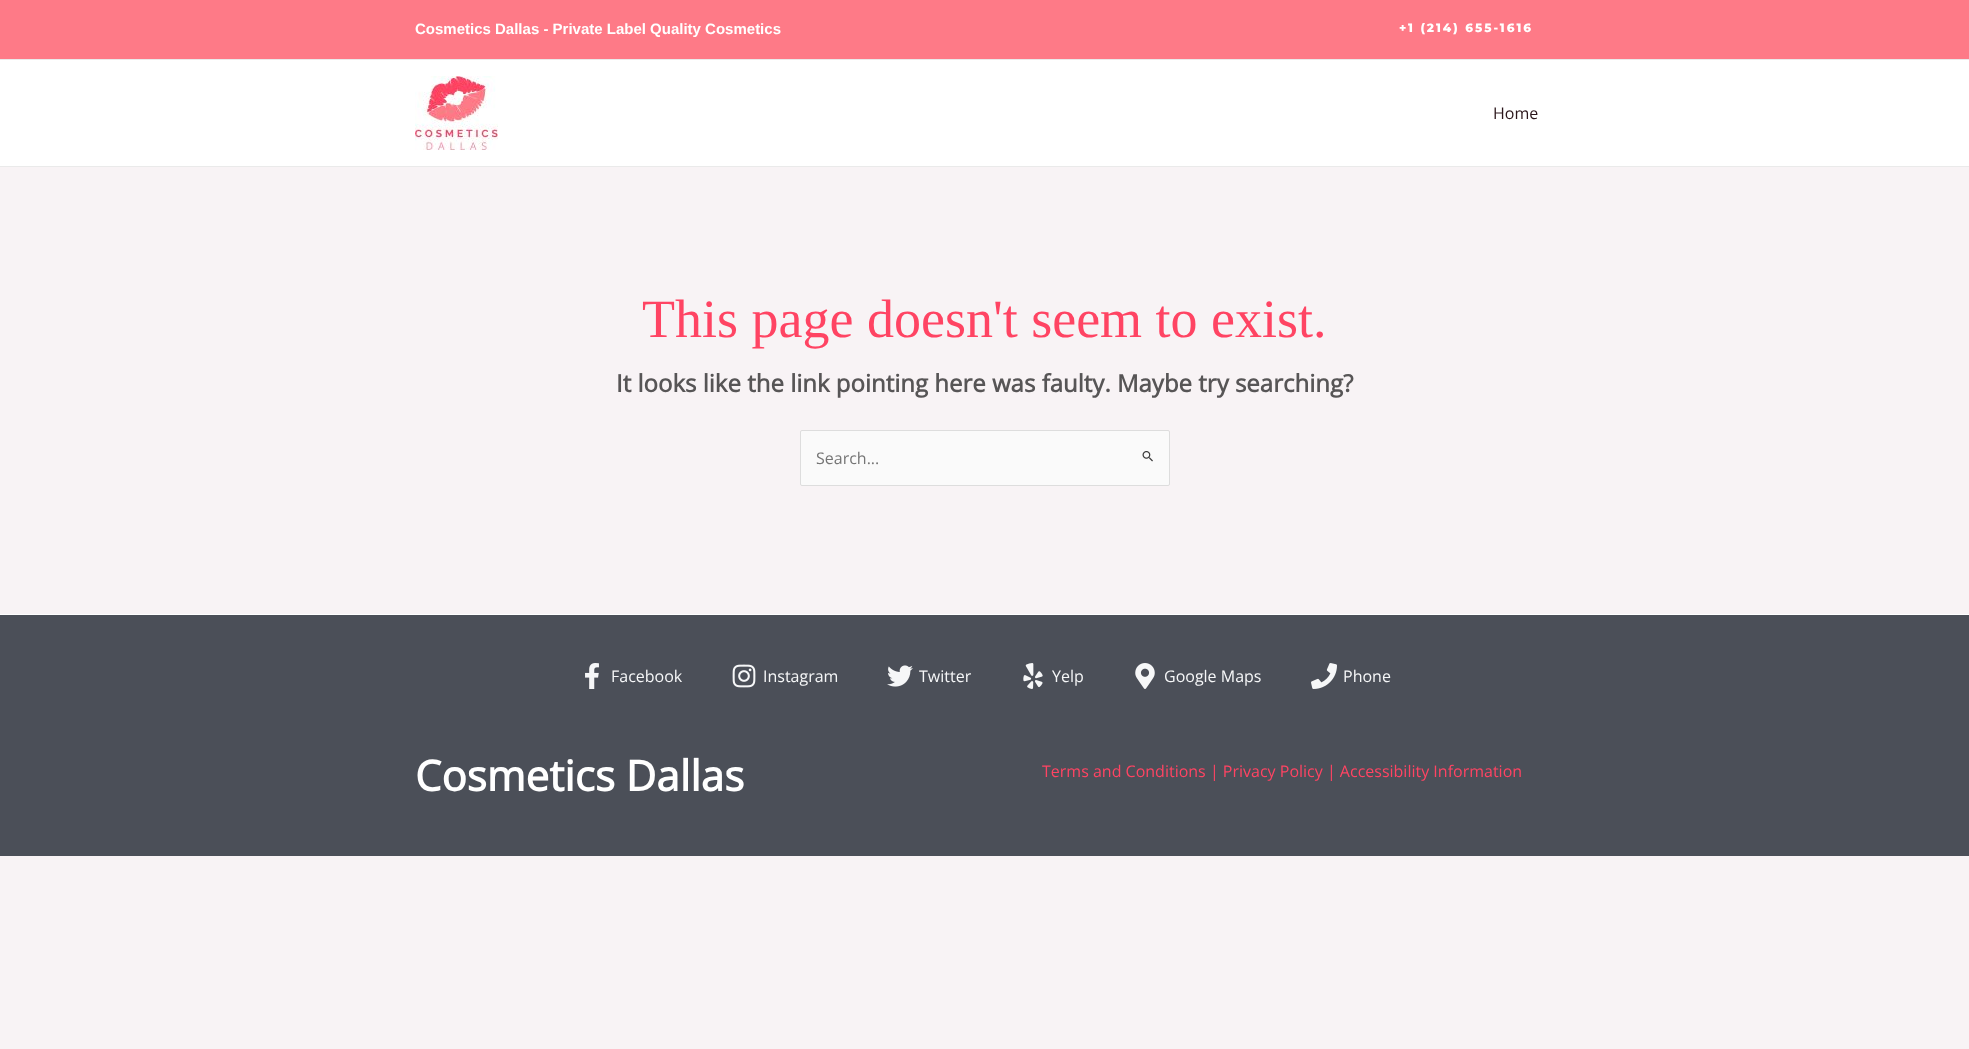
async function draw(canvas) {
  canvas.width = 1969;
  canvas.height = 1049;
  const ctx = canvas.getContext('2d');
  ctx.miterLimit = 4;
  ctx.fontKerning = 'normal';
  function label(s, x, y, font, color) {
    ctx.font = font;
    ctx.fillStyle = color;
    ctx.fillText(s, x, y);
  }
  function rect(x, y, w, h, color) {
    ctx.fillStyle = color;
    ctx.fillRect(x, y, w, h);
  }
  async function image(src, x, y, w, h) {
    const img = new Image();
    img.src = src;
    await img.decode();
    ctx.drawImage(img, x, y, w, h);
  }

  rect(0, 0, 1969, 1049, '#f8f3f5');
  rect(0, 0, 1969, 59, '#fe7a87');
  rect(0, 59, 1969, 1, '#eaeaea');
  label('Cosmetics Dallas - Private Label Quality Cosmetics', 415, 34, 'bold 15px Liberation Sans', '#fff');
  ctx.letterSpacing = '2px';
  label('+1 (214) 655-1616', 1399, 32, '100 12px Montserrat', '#fff');
  rect(0, 60, 1969, 106, '#fff');
  rect(0, 166, 1969, 1, '#eaeaea');
  await image('assets/img1.png', 415, 76, 83, 74);
  ctx.letterSpacing = '0px';
  label('Home', 1493, 119, '16px Open Sans', '#2b161b');
  label('This page doesn\'t seem to exist.', 642, 337, '54px Liberation Serif', '#ff4463');
  label('It looks like the link pointing here was faulty. Maybe try searching?', 616, 392, 'bold 24px Open Sans', '#575556');
  ctx.fillStyle = '#fafafa';
  ctx.beginPath();
  ctx.roundRect(800.5, 430.5, 369, 55, 1.5);
  ctx.fill();
  ctx.strokeStyle = '#ddd';
  ctx.stroke();
  label('Search...', 816, 464, '16px Open Sans', '#757575');
  await image('assets/img2.png', 1142, 451, 11, 11);
  rect(0, 615, 1969, 241, '#4b4f58');
  rect(0, 614, 1969, 1, '#fff');
  await image('assets/img3.png', 585, 663, 14, 26);
  label('Facebook', 611, 682, '16px Open Sans', '#f6f7f8');
  await image('assets/img4.png', 732, 664, 24, 24);
  label('Instagram', 763, 682, '16px Open Sans', '#f6f7f8');
  await image('assets/img5.png', 887, 665, 26, 22);
  label('Twitter', 919, 682, '16px Open Sans', '#f6f7f8');
  await image('assets/img6.png', 1023, 663, 20, 26);
  label('Yelp', 1052, 682, '16px Open Sans', '#f6f7f8');
  await image('assets/img7.png', 1135, 663, 20, 26);
  label('Google Maps', 1164, 682, '16px Open Sans', '#f6f7f8');
  await image('assets/img8.png', 1311, 663, 26, 26);
  label('Phone', 1343, 682, '16px Open Sans', '#f6f7f8');
  label('Cosmetics Dallas', 415, 791, 'bold 42px Open Sans', '#fff');
  label('Terms and Conditions | Privacy Policy | Accessibility Information', 1042, 777, '16px Open Sans', '#ff4463');
}

draw(document.querySelector('canvas'));
